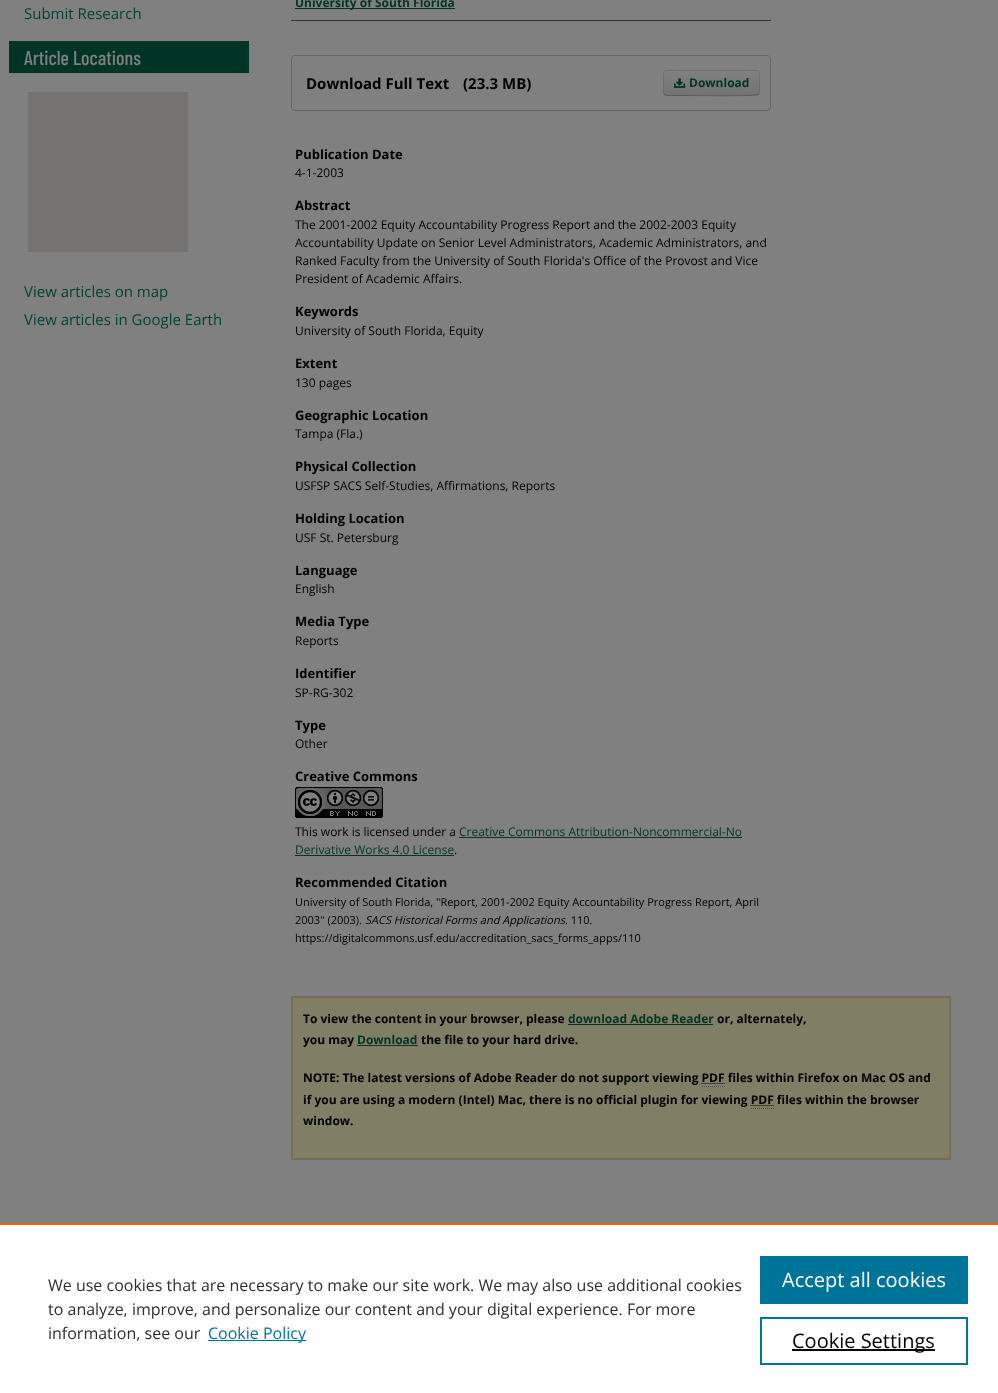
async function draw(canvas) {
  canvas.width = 998;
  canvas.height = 1393;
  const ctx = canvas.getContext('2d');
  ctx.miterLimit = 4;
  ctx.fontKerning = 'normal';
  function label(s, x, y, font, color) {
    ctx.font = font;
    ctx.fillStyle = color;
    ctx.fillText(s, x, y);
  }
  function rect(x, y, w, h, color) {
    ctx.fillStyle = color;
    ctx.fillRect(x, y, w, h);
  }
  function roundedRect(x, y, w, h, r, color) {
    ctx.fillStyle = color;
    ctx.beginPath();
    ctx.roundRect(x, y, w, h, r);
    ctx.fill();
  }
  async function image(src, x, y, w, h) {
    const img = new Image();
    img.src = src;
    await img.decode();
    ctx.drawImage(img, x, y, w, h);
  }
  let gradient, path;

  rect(0, 0, 998, 1393, '#808080');
  label('Submit Research', 24, 19, '15px Open Sans', '#004334');
  rect(9, 41, 240, 32, '#003424');
  label('Article Locations', 24, 65, '500 20px Barlow Condensed', '#808080');
  rect(28, 92, 160, 160, '#737270');
  label('View articles on map', 24, 297, '15px Open Sans', '#004334');
  label('View articles in Google Earth', 24, 325, '15px Open Sans', '#004334');
  rect(291, 20, 480, 1, '#333');
  rect(295, 8, 160, 1, '#003424');
  label('University of South Florida', 295, 7, 'bold 12px Open Sans', '#003424');
  ctx.beginPath();
  ctx.roundRect(291.5, 55.5, 479, 55, 3.5);
  ctx.strokeStyle = '#666';
  ctx.stroke();
  label('Download Full Text', 306, 89, 'bold 15px Open Sans', '#000');
  label('(23.3 MB)', 463, 89, 'bold 15px Open Sans', '#000');
  roundedRect(663, 70, 97, 26, 4, '#7b7b7b');
  ctx.save();
  ctx.beginPath();
  ctx.roundRect(663, 70, 97, 26, 4);
  ctx.clip();
  gradient = ctx.createLinearGradient(712, 71, 712, 95);
  gradient.addColorStop(0, '#808080');
  gradient.addColorStop(1, '#737373');
  ctx.fillStyle = gradient;
  ctx.fillRect(663, 71, 97, 24);
  ctx.restore();
  path = new Path2D('M758.5 94.5H758C756 96.5 690.5 95.5 682 95.5H667L664.5 94.5');
  ctx.strokeStyle = '#00000040';
  ctx.stroke(path);
  path = new Path2D('M664.5 94.5C662.5 92.5 663.5 88.5 663.5 86C663.5 67 661 70.5 682 70.5H741C762 70.5 759.5 67 759.5 86C759.5 88.5 760.5 92.5 758.5 94.5');
  ctx.strokeStyle = '#0000001a';
  ctx.stroke(path);
  await image('assets/img1.png', 674, 78, 12, 10);
  label('Download', 689, 87, 'bold 12px Open Sans', '#003424');
  label('Publication Date', 295, 159, 'bold 13px Open Sans', '#000');
  label('4-1-2003', 295, 177, '12px Open Sans', '#000');
  label('Abstract', 295, 210, 'bold 13px Open Sans', '#000');
  label('The 2001-2002 Equity Accountability Progress Report and the 2002-2003 Equity', 295, 229, '12px Open Sans', '#000');
  label('Accountability Update on Senior Level Administrators, Academic Administrators, and', 295, 247, '12px Open Sans', '#000');
  label('Ranked Faculty from the University of South Florida\'s Office of the Provost and Vice', 295, 265, '12px Open Sans', '#000');
  label('President of Academic Affairs.', 295, 283, '12px Open Sans', '#000');
  label('Keywords', 295, 316, 'bold 13px Open Sans', '#000');
  label('University of South Florida, Equity', 295, 335, '12px Open Sans', '#000');
  label('Extent', 295, 368, 'bold 13px Open Sans', '#000');
  label('130 pages', 295, 387, '12px Open Sans', '#000');
  label('Geographic Location', 295, 420, 'bold 13px Open Sans', '#000');
  label('Tampa (Fla.)', 295, 438, '12px Open Sans', '#000');
  label('Physical Collection', 295, 471, 'bold 13px Open Sans', '#000');
  label('USFSP SACS Self-Studies, Affirmations, Reports', 295, 490, '12px Open Sans', '#000');
  label('Holding Location', 295, 523, 'bold 13px Open Sans', '#000');
  label('USF St. Petersburg', 295, 542, '12px Open Sans', '#000');
  label('Language', 295, 575, 'bold 13px Open Sans', '#000');
  label('English', 295, 593, '12px Open Sans', '#000');
  label('Media Type', 295, 626, 'bold 13px Open Sans', '#000');
  label('Reports', 295, 645, '12px Open Sans', '#000');
  label('Identifier', 295, 678, 'bold 13px Open Sans', '#000');
  label('SP-RG-302', 295, 697, '12px Open Sans', '#000');
  label('Type', 295, 730, 'bold 13px Open Sans', '#000');
  label('Other', 295, 748, '12px Open Sans', '#000');
  label('Creative Commons', 295, 781, 'bold 13px Open Sans', '#000');
  await image('assets/img2.png', 295, 787, 88, 31);
  label('This work is licensed under a', 295, 836, '12px Open Sans', '#000');
  label('Creative Commons Attribution-Noncommercial-No', 459, 836, '12px Open Sans', '#003424');
  rect(459, 837, 283, 1, '#003424');
  label('Derivative Works 4.0 License', 295, 854, '12px Open Sans', '#003424');
  rect(295, 855, 159, 1, '#003424');
  label('.', 454, 854, '12px Open Sans', '#000');
  label('Recommended Citation', 295, 887, 'bold 13px Open Sans', '#000');
  label('University of South Florida, "Report, 2001-2002 Equity Accountability Progress Report, April', 295, 906, '11px Open Sans', '#000');
  label('2003" (2003).', 295, 924, '11px Open Sans', '#000');
  label('SACS Historical Forms and Applications', 365, 924, 'italic 11px Open Sans', '#000');
  label('. 110.', 565, 924, '11px Open Sans', '#000');
  label('https://digitalcommons.usf.edu/accreditation_sacs_forms_apps/110', 295, 942, '11px Open Sans', '#000');
  ctx.fillStyle = '#807e65';
  ctx.beginPath();
  ctx.rect(292, 997, 658, 162);
  ctx.fill();
  ctx.strokeStyle = '#786e51';
  ctx.lineWidth = 2;
  ctx.stroke();
  label('To view the content in your browser, please', 303, 1023, 'bold 12px Open Sans', '#000');
  label('download Adobe Reader', 568, 1023, 'bold 12px Open Sans', '#003424');
  rect(568, 1024, 145, 1, '#003424');
  label('or, alternately,', 717, 1023, 'bold 12px Open Sans', '#000');
  label('you may', 303, 1044, 'bold 12px Open Sans', '#000');
  label('Download', 357, 1044, 'bold 12px Open Sans', '#003424');
  rect(357, 1045, 61, 1, '#003424');
  label('the file to your hard drive.', 421, 1044, 'bold 12px Open Sans', '#000');
  label('NOTE: The latest versions of Adobe Reader do not support viewing PDF files within Firefox on Mac OS and', 303, 1082, 'bold 12px Open Sans', '#000');
  path = new Path2D('M701.5 1083.5H724.5');
  ctx.strokeStyle = '#000';
  ctx.lineWidth = 1;
  ctx.setLineDash([1, 1]);
  ctx.stroke(path);
  path = new Path2D('M702 1086.5H725');
  ctx.strokeStyle = '#4d4d4d';
  ctx.stroke(path);
  label('if you are using a modern (Intel) Mac, there is no official plugin for viewing PDF files within the browser', 303, 1104, 'bold 12px Open Sans', '#000');
  path = new Path2D('M750.5 1105.5H774');
  ctx.strokeStyle = '#000';
  ctx.stroke(path);
  path = new Path2D('M751 1108.5H774');
  ctx.strokeStyle = '#4d4d4d';
  ctx.stroke(path);
  label('window.', 303, 1125, 'bold 12px Open Sans', '#000');
  rect(0, 1225, 998, 168, '#fff');
  rect(0, 1223, 998, 2, '#eb6500');
  label('We use cookies that are necessary to make our site work. We may also use additional cookies', 48, 1291, '16px Open Sans', '#2e2e2e');
  label('to analyze, improve, and personalize our content and your digital experience. For more', 48, 1315, '16px Open Sans', '#2e2e2e');
  label('information, see our', 48, 1339, '16px Open Sans', '#2e2e2e');
  rect(208, 1340, 98, 1, '#007398');
  label('Cookie Policy', 208, 1339, '16px Open Sans', '#007398');
  rect(760, 1256, 208, 48, '#007398');
  label('Accept all cookies', 782, 1287, '20px Open Sans', '#fff');
  ctx.strokeStyle = '#007398';
  ctx.lineWidth = 2;
  ctx.setLineDash([]);
  ctx.strokeRect(761, 1318, 206, 46);
  rect(792, 1349, 143, 2, '#000');
  label('Cookie Settings', 792, 1348, '20px Open Sans', '#000');
}

draw(document.querySelector('canvas'));
